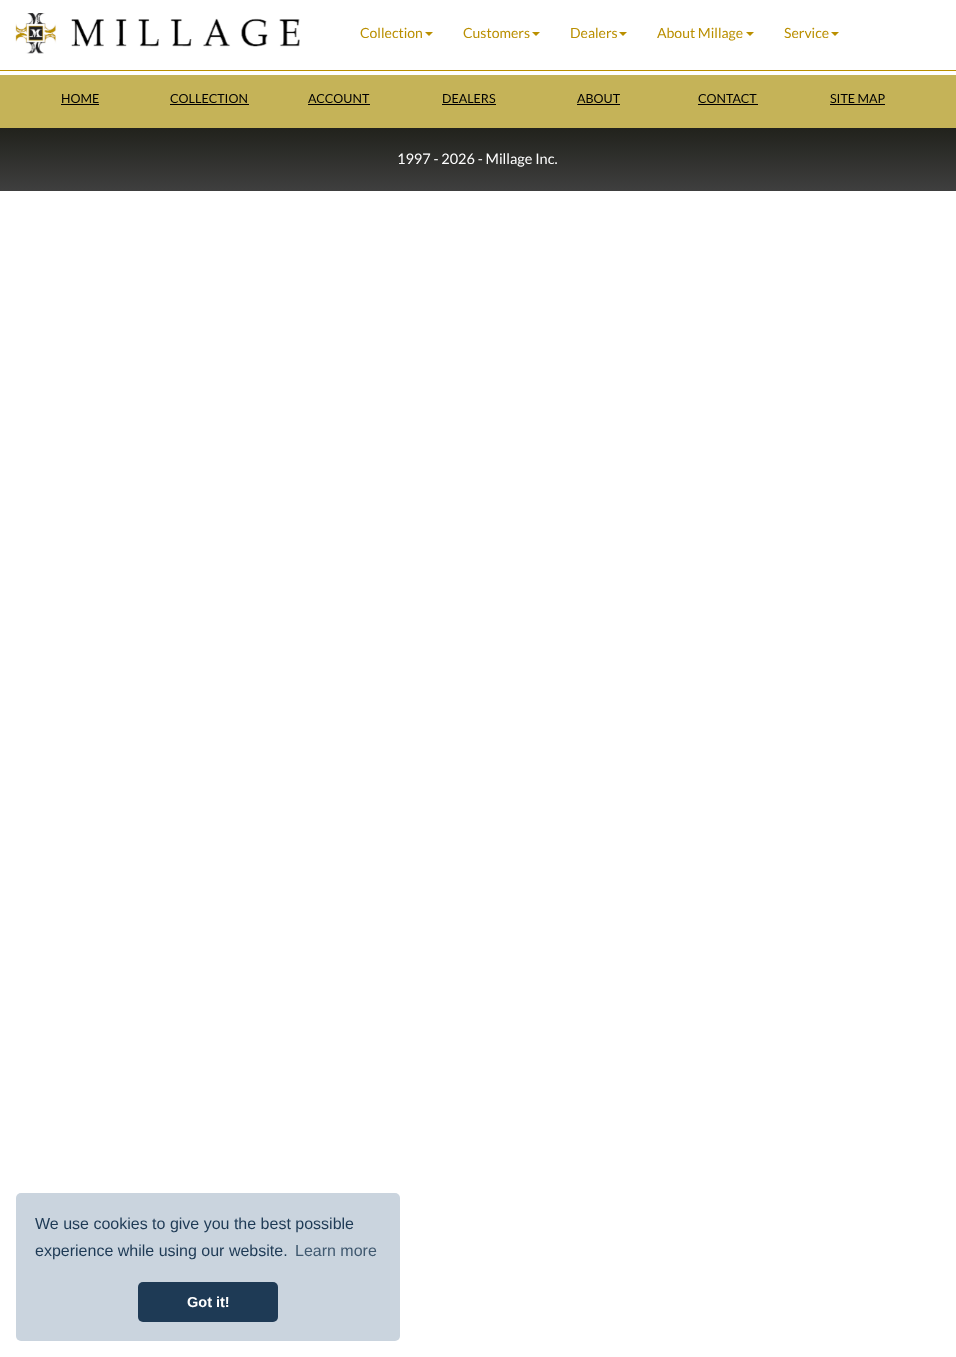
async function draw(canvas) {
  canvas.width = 956;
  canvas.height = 1357;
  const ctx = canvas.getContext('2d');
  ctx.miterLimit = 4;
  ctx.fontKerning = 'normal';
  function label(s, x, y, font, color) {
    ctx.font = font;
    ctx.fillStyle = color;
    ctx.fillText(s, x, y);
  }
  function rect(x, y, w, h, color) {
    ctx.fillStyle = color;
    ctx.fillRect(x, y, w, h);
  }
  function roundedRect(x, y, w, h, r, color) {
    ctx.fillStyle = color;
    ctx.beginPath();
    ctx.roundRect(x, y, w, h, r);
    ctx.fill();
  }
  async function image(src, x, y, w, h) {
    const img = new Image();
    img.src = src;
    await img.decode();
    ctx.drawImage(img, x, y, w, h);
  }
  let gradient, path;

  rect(0, 0, 956, 1357, '#fff');
  rect(0, 70, 956, 1, '#ba8f00');
  await image('assets/img1.png', 15, 13, 285, 41);
  label('Collection', 360, 38, '14px Lato', '#ba8f00');
  path = new Path2D('M425 32H433L429 36Z');
  ctx.fill(path);
  label('Customers', 463, 38, '14px Lato', '#ba8f00');
  path = new Path2D('M532 32H540L536 36Z');
  ctx.fill(path);
  label('Dealers', 570, 38, '14px Lato', '#ba8f00');
  path = new Path2D('M619 32H627L623 36Z');
  ctx.fill(path);
  label('About Millage', 657, 38, '14px Lato', '#ba8f00');
  path = new Path2D('M746 32H754L750 36Z');
  ctx.fill(path);
  label('Service', 784, 38, '14px Lato', '#ba8f00');
  path = new Path2D('M831 32H839L835 36Z');
  ctx.fill(path);
  rect(0, 75, 956, 53, '#c5b358');
  label('HOME', 61, 103, '12.5px Lato', '#000');
  rect(61, 104, 38, 1, '#000');
  label('COLLECTION', 170, 103, '12.5px Lato', '#000');
  rect(170, 104, 79, 1, '#000');
  label('ACCOUNT', 308, 103, '12.5px Lato', '#000');
  rect(308, 104, 62, 1, '#000');
  label('DEALERS', 442, 103, '12.5px Lato', '#000');
  rect(442, 104, 54, 1, '#000');
  label('ABOUT', 577, 103, '12.5px Lato', '#000');
  rect(577, 104, 43, 1, '#000');
  label('CONTACT', 698, 103, '12.5px Lato', '#000');
  rect(698, 104, 60, 1, '#000');
  label('SITE MAP', 830, 103, '12.5px Lato', '#000');
  rect(830, 104, 55, 1, '#000');
  gradient = ctx.createLinearGradient(478, 128, 478, 191);
  gradient.addColorStop(0, '#21221c');
  gradient.addColorStop(1, '#3f3f3f');
  ctx.fillStyle = gradient;
  ctx.fillRect(0, 128, 956, 63);
  label('1997 - 2026 - Millage Inc.', 397, 164, '14.5px Lato', '#fff');
  roundedRect(16, 1193, 384, 148, 5, '#cad4de');
  label('We use cookies to give you the best possible', 35, 1229, '16px Liberation Sans', '#1e3a55');
  label('experience while using our website.', 35, 1256, '16px Liberation Sans', '#1e3a55');
  label('Learn more', 295, 1256, '16px Liberation Sans', '#405970');
  roundedRect(138, 1282, 140, 40, 5, '#1e3a55');
  label('Got it!', 187, 1307, 'bold 14.5px Liberation Sans', '#fff');
}

draw(document.querySelector('canvas'));
